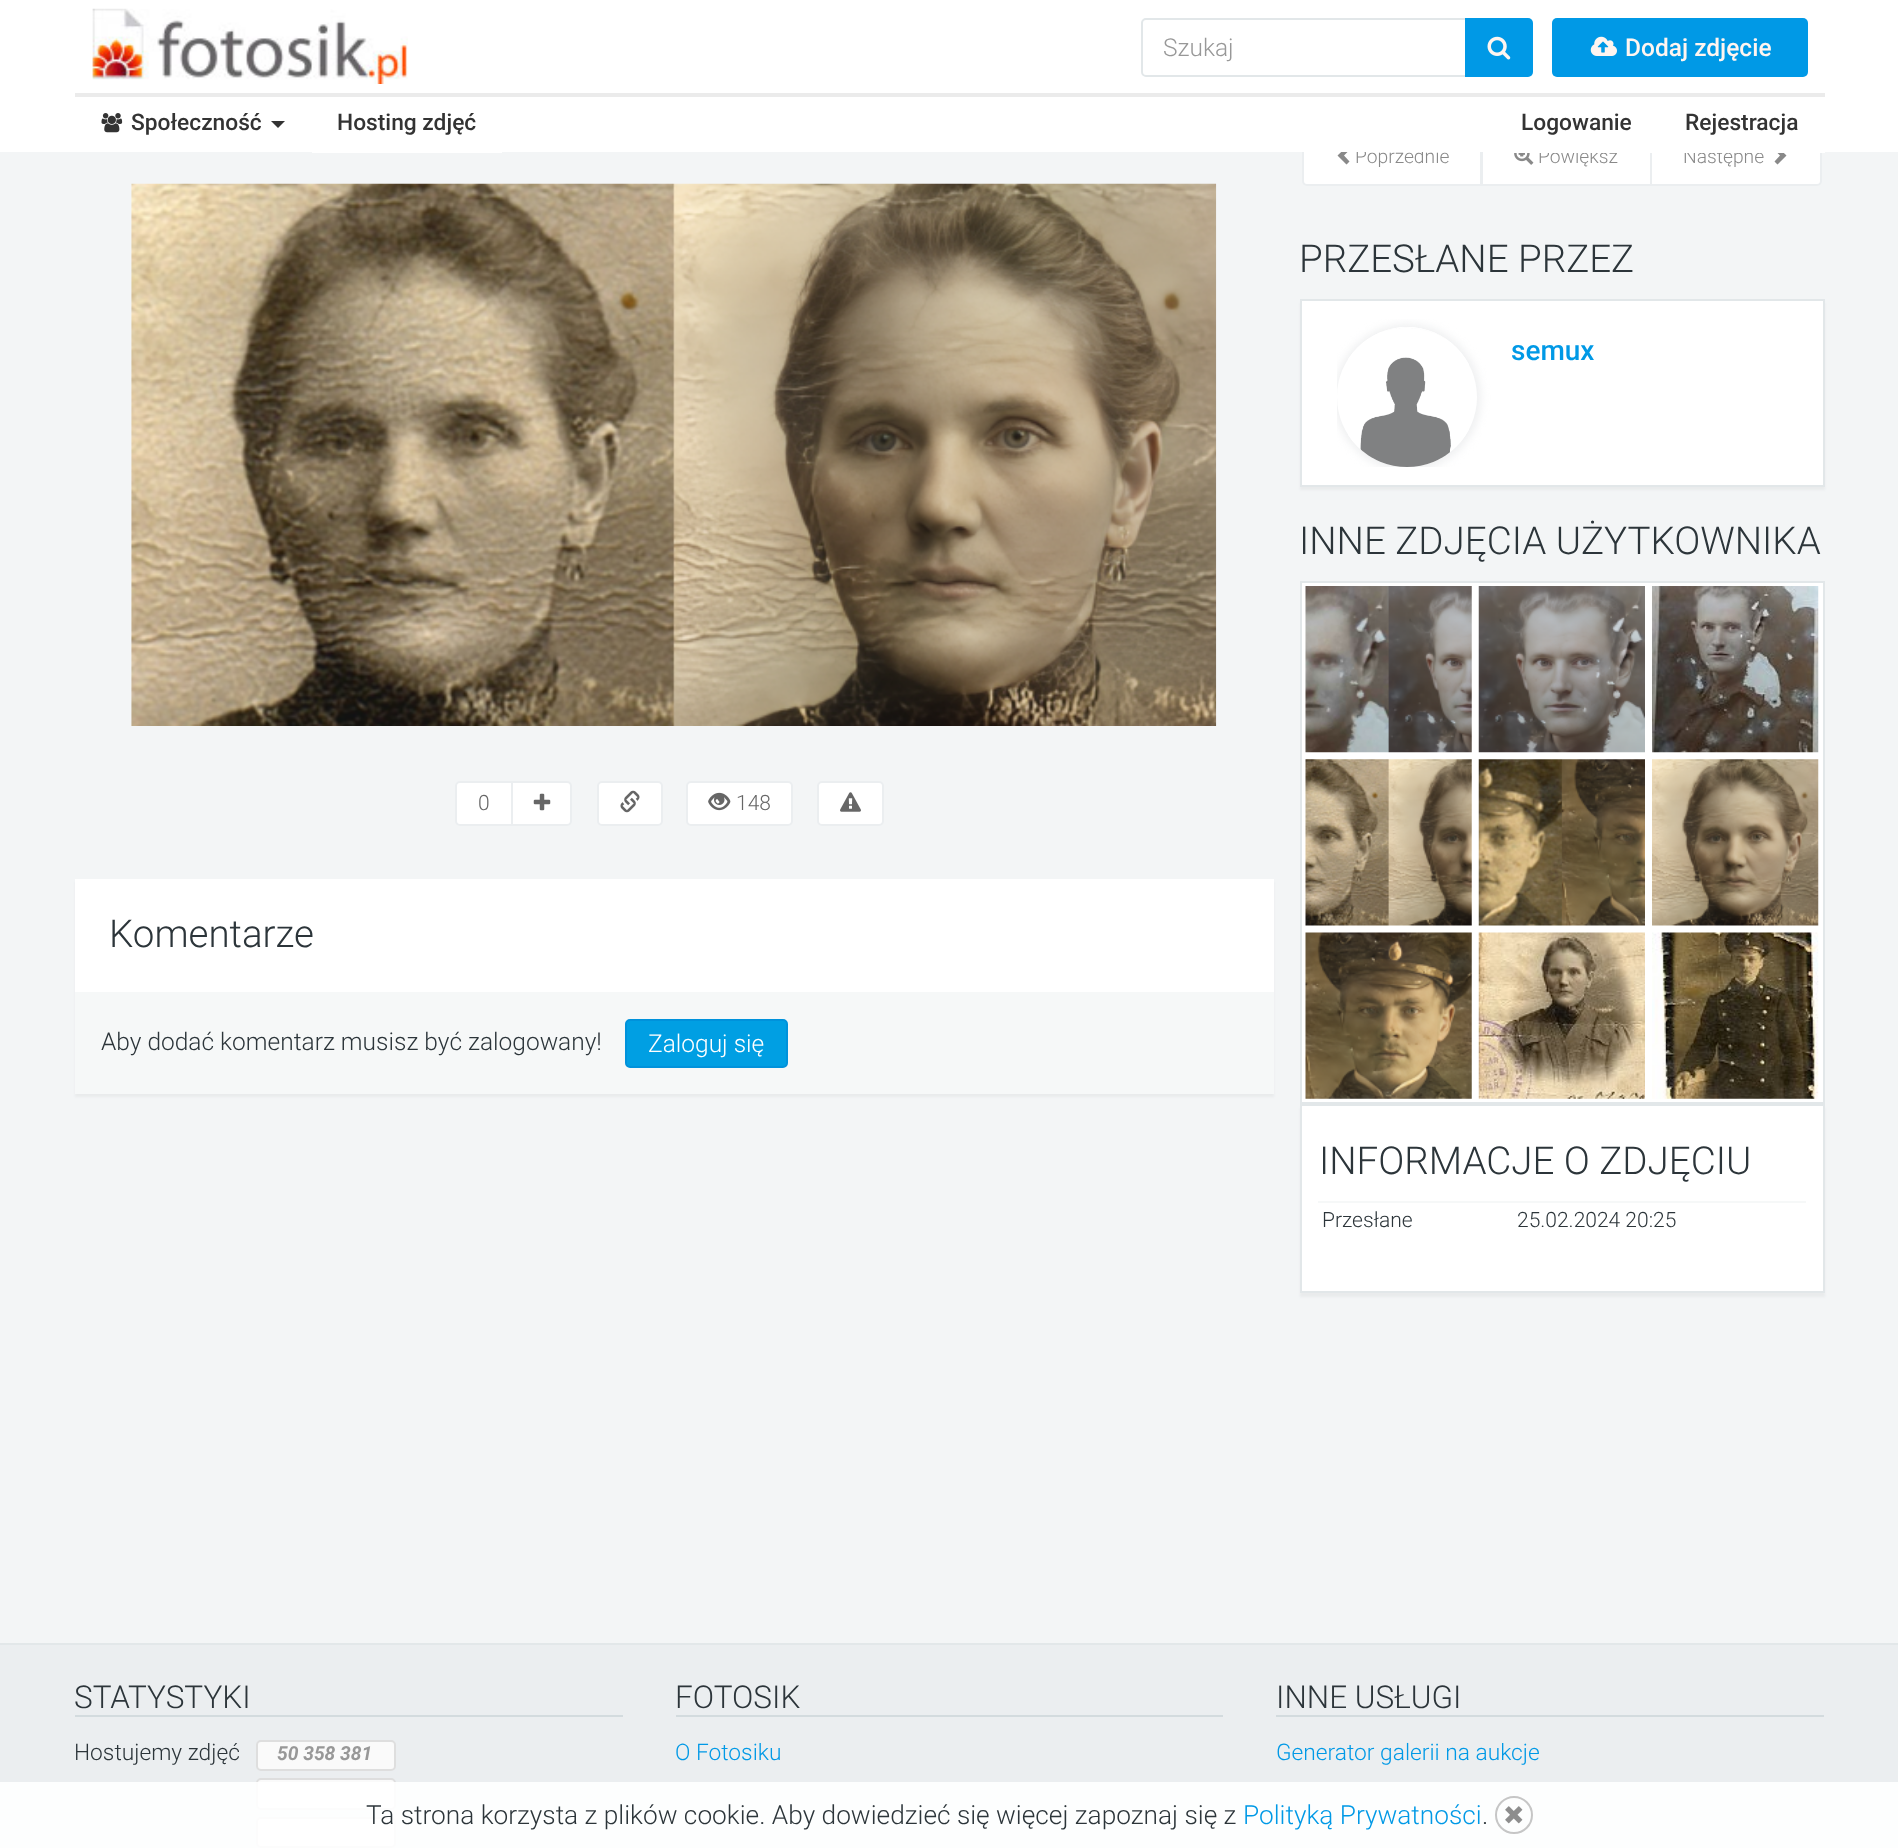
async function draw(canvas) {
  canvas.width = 1898;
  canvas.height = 1848;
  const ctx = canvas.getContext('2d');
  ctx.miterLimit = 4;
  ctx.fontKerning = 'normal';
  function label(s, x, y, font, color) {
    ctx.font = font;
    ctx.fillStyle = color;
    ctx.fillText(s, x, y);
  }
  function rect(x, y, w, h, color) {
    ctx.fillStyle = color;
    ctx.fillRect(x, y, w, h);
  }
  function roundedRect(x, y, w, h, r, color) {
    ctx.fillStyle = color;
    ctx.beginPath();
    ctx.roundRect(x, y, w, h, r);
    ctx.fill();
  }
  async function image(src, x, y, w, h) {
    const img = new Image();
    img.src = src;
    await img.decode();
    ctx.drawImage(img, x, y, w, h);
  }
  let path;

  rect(0, 0, 1898, 1848, '#f3f5f6');
  ctx.fillStyle = '#fff';
  ctx.beginPath();
  ctx.roundRect(1303, 129, 178, 56, [4, 0, 0, 4]);
  ctx.fill();
  ctx.strokeStyle = '#ebeef0';
  ctx.lineWidth = 2;
  ctx.stroke();
  ctx.fillStyle = '#898989';
  path = new Path2D('M1349.5 150L1344 155.5L1349.5 161.5L1346.5 164.5L1337.5 155.5L1346.5 147Z');
  ctx.fill(path);
  label('Poprzednie', 1355, 163, '300 19.25px Roboto', '#898989');
  rect(1483, 152, 167, 32, '#fff');
  ctx.strokeRect(1482, 129, 169, 56);
  label('Powiększ', 1538, 163, '300 19.25px Roboto', '#898989');
  ctx.fillStyle = '#fff';
  ctx.beginPath();
  ctx.roundRect(1651, 129, 170, 56, [0, 4, 4, 0]);
  ctx.fill();
  ctx.stroke();
  label('Następne', 1683, 163, '300 19.25px Roboto', '#898989');
  path = new Path2D('M1786.5 155.5L1777.5 164.5L1774.5 161.5L1780 155.5L1774.5 150L1777.5 147Z');
  ctx.fill(path);
  rect(0, 0, 1898, 152, '#fff');
  await image('assets/img1.png', 92, 8, 316, 76);
  ctx.beginPath();
  ctx.roundRect(1142, 19, 324, 57, [4, 0, 0, 4]);
  ctx.strokeStyle = '#e2e7e9';
  ctx.stroke();
  label('Szukaj', 1163, 56, '300 24.5px Roboto', '#989898');
  ctx.fillStyle = '#0099e6';
  ctx.beginPath();
  ctx.roundRect(1465, 18, 68, 59, [0, 5, 5, 0]);
  ctx.fill();
  await image('assets/img2.png', 1487, 36, 24, 24);
  roundedRect(1552, 18, 256, 59, 5, '#0099e6');
  await image('assets/img3.png', 1590, 36, 27, 20);
  label('Dodaj zdjęcie', 1625, 56, '500 24.5px Roboto', '#fff5f0');
  rect(75, 93, 1750, 4, '#ebebeb');
  await image('assets/img4.png', 101, 113, 22, 20);
  label('Społeczność', 131, 130, '500 22.75px Roboto', '#333');
  path = new Path2D('M271 121H285L278 128Z');
  ctx.fill(path);
  rect(312, 152, 190, 1, '#fff');
  label('Hosting zdjęć', 337, 130, '500 22.75px Roboto', '#333');
  rect(1539, 152, 120, 1, '#fff');
  label('Logowanie', 1521, 130, '500 22.75px Roboto', '#333');
  rect(1684, 152, 141, 1, '#fff');
  label('Rejestracja', 1685, 130, '500 22.75px Roboto', '#333');
  await image('assets/img5.png', 131, 183, 1086, 543);
  ctx.fillStyle = '#fff';
  ctx.beginPath();
  ctx.roundRect(456, 782, 56, 43, [4, 0, 0, 4]);
  ctx.fill();
  ctx.strokeStyle = '#ebeef0';
  ctx.stroke();
  label('0', 478, 810, '300 21px Roboto', '#666');
  ctx.fillStyle = '#fff';
  ctx.beginPath();
  ctx.roundRect(512, 782, 59, 43, [0, 4, 4, 0]);
  ctx.fill();
  ctx.stroke();
  await image('assets/img6.png', 533, 793, 18, 18);
  ctx.beginPath();
  ctx.roundRect(598, 782, 64, 43, 4);
  ctx.fill();
  ctx.stroke();
  await image('assets/img7.png', 620, 790, 20, 23);
  ctx.beginPath();
  ctx.roundRect(687, 782, 105, 43, 4);
  ctx.fill();
  ctx.stroke();
  await image('assets/img8.png', 708, 792, 23, 19);
  label('148', 736, 810, '300 21px Roboto', '#666');
  ctx.fillStyle = '#fff';
  ctx.beginPath();
  ctx.roundRect(818, 782, 65, 43, 4);
  ctx.fill();
  ctx.stroke();
  await image('assets/img9.png', 840, 792, 21, 20);
  ctx.fillStyle = '#e9ebec';
  ctx.filter = 'blur(1px)';
  ctx.beginPath();
  ctx.rect(75, 882, 1199, 215);
  ctx.fill();
  ctx.filter = 'none';
  rect(75, 879, 1199, 113, '#fff');
  label('Komentarze', 109, 947, '300 38.5px Roboto', '#2c353a');
  rect(75, 992, 1199, 102, '#f6f8f8');
  label('Aby dodać komentarz musisz być zalogowany!', 101, 1050, '300 24.5px Roboto', '#2c353a');
  ctx.fillStyle = '#009fe3';
  ctx.beginPath();
  ctx.roundRect(626, 1020, 161, 47, 4);
  ctx.fill();
  ctx.strokeStyle = '#0092db';
  ctx.stroke();
  label('Zaloguj się', 648, 1052, '300 24.5px Roboto', '#fff');
  await image('assets/img10.png', 1514, 153, 20, 12);
  label('PRZESŁANE PRZEZ', 1299, 272, '300 38.5px Roboto', '#2c353a');
  ctx.fillStyle = '#e9ebec';
  ctx.filter = 'blur(1px)';
  ctx.beginPath();
  ctx.rect(1300, 303, 525, 187);
  ctx.fill();
  ctx.filter = 'none';
  ctx.fillStyle = '#fff';
  ctx.beginPath();
  ctx.rect(1301, 300, 523, 186);
  ctx.fill();
  ctx.strokeStyle = '#e2e7e9';
  ctx.stroke();
  ctx.save();
  ctx.beginPath();
  ctx.rect(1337, 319, 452, 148);
  ctx.clip();
  path = new Path2D('M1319 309H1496V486H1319ZM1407 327C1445.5 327 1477 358.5 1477 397C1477 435.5 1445.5 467 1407 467C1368.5 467 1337 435.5 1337 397C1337 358.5 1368.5 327 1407 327Z');
  ctx.clip(path, 'evenodd');
  ctx.fillStyle = '#eff0f1';
  ctx.filter = 'blur(4.5px)';
  ctx.beginPath();
  ctx.roundRect(1334, 324, 147, 147, 73.5);
  ctx.fill();
  ctx.filter = 'none';
  ctx.restore();
  await image('assets/img11.png', 1348, 327, 121, 140);
  label('semux', 1511, 360, '500 28px Roboto', '#0099e6');
  label('INNE ZDJĘCIA UŻYTKOWNIKA', 1299, 554, '300 38.5px Roboto', '#2c353a');
  ctx.fillStyle = '#fff';
  ctx.beginPath();
  ctx.rect(1301, 582, 523, 521);
  ctx.fill();
  ctx.stroke();
  await image('assets/img12.png', 1305, 586, 167, 167);
  await image('assets/img13.png', 1478, 586, 167, 167);
  await image('assets/img14.png', 1652, 586, 167, 167);
  await image('assets/img15.png', 1305, 759, 167, 167);
  await image('assets/img16.png', 1478, 759, 167, 167);
  await image('assets/img17.png', 1652, 759, 167, 167);
  await image('assets/img18.png', 1305, 932, 167, 167);
  await image('assets/img19.png', 1478, 932, 167, 167);
  await image('assets/img20.png', 1652, 932, 167, 167);
  ctx.fillStyle = '#e9ebec';
  ctx.filter = 'blur(1px)';
  ctx.beginPath();
  ctx.rect(1300, 1108, 525, 189);
  ctx.fill();
  ctx.filter = 'none';
  ctx.fillStyle = '#fff';
  ctx.beginPath();
  ctx.rect(1301, 1105, 523, 187);
  ctx.fill();
  ctx.stroke();
  label('INFORMACJE O ZDJĘCIU', 1319, 1174, '300 38.5px Roboto', '#2c353a');
  label('Przesłane', 1322, 1227, '300 21px Roboto', '#2c353a');
  rect(1318, 1201, 488, 2, '#f6f8f8');
  label('25.02.2024 20:25', 1517, 1227, '300 21px Roboto', '#2c353a');
  rect(0, 1645, 1898, 203, '#ebeef0');
  rect(0, 1643, 1898, 2, '#e2e7e9');
  rect(75, 1715, 548, 2, '#d3dbde');
  label('STATYSTYKI', 74, 1708, '300 31.5px Roboto', '#2c353a');
  label('Hostujemy zdjęć', 74, 1760, '300 22.75px Roboto', '#2c353a');
  ctx.fillStyle = '#fafafa';
  ctx.beginPath();
  ctx.roundRect(257, 1741, 138, 29, 4);
  ctx.fill();
  ctx.strokeStyle = '#dedede';
  ctx.stroke();
  label('50 358 381', 277, 1760, 'italic bold 19.25px Roboto', '#989898');
  ctx.fillStyle = '#fafafa';
  ctx.beginPath();
  ctx.roundRect(257, 1779, 138, 30, 4);
  ctx.fill();
  ctx.stroke();
  ctx.beginPath();
  ctx.roundRect(257, 1818, 138, 29, 4);
  ctx.fill();
  ctx.stroke();
  rect(676, 1715, 547, 2, '#d3dbde');
  label('FOTOSIK', 675, 1708, '300 31.5px Roboto', '#2c353a');
  label('O Fotosiku', 675, 1760, '300 22.75px Roboto', '#0099e6');
  rect(1276, 1715, 548, 2, '#d3dbde');
  label('INNE USŁUGI', 1276, 1708, '300 31.5px Roboto', '#2c353a');
  label('Generator galerii na aukcje', 1276, 1760, '300 22.75px Roboto', '#0099e6');
  rect(0, 1782, 1898, 66, '#ffffffe6');
  label('Ta strona korzysta z plików cookie. Aby dowiedzieć się więcej zapoznaj się z', 366, 1824, '300 26.25px Roboto', '#2c353a');
  label('Polityką Prywatności', 1243, 1824, '300 26.25px Roboto', '#0099e6');
  label('.', 1482, 1824, '300 26.25px Roboto', '#2c353a');
  ctx.beginPath();
  ctx.arc(1514, 1815, 18, 0, 2 * Math.PI);
  ctx.strokeStyle = '#c6c6c6';
  ctx.stroke();
  await image('assets/img21.png', 1505, 1806, 18, 18);
}

draw(document.querySelector('canvas'));
